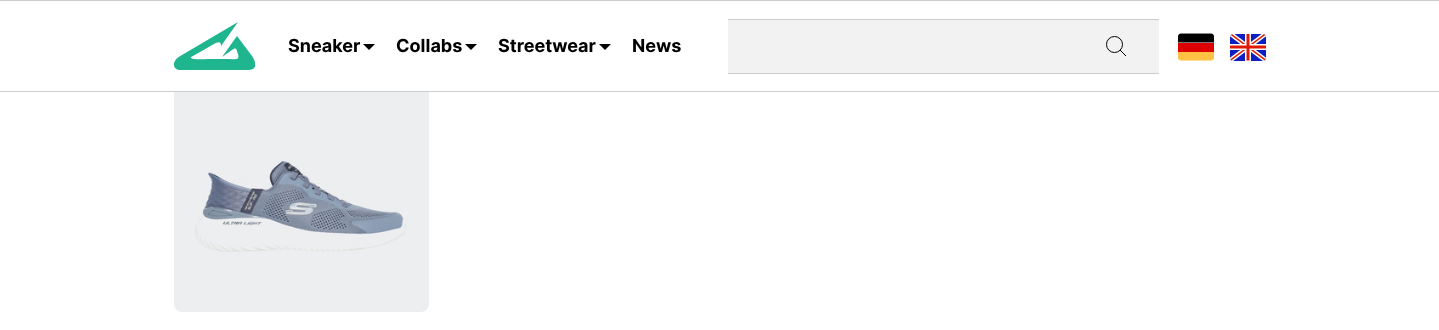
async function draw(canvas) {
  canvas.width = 1439;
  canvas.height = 330;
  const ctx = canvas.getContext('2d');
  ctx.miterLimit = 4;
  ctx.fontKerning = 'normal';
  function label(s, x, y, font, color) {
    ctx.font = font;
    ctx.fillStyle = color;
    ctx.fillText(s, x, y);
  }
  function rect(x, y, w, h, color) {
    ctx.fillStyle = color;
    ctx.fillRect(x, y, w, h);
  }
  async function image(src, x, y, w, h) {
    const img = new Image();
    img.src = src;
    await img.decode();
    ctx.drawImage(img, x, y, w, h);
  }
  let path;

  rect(0, 0, 1439, 330, '#fff');
  rect(0, 0, 1439, 1, '#ccc');
  rect(0, 91, 1439, 1, '#ccc');
  ctx.save();
  ctx.beginPath();
  ctx.rect(174, 22, 81, 48);
  ctx.clip();
  ctx.fillStyle = '#1fb58f';
  path = new Path2D('M180 70H248C258 70 256 62 252 56L237 36L222 57L232 50C237 47 236 49 238 54C240 61 235 59 229 59H209C206 59 192 60 191 58C190 57 193 56 193 56L214 44C218 42 221 41 221 46L238 22L182 55C170 61 173 70 180 70Z');
  ctx.fill(path);
  ctx.restore();
  label('Sneaker', 288, 52, 'bold 18px Inter', '#000');
  await image('assets/img1.png', 363, 44, 12, 6);
  label('Collabs', 396, 52, 'bold 18px Inter', '#000');
  await image('assets/img1.png', 465, 44, 12, 6);
  label('Streetwear', 498, 52, 'bold 18px Inter', '#000');
  await image('assets/img1.png', 599, 44, 12, 6);
  label('News', 632, 52, 'bold 18px Inter', '#000');
  rect(728, 20, 431, 53, '#f2f2f2');
  rect(728, 19, 431, 1, '#ccc');
  rect(728, 73, 431, 1, '#ccc');
  ctx.beginPath();
  ctx.arc(1114.5, 44.5, 8, 0, 2 * Math.PI);
  ctx.strokeStyle = '#000';
  ctx.stroke();
  path = new Path2D('M1126 56L1120 50');
  ctx.stroke(path);
  await image('assets/img2.png', 1178, 33, 36, 28);
  await image('assets/img3.png', 1230, 34, 36, 27);
  await image('assets/img4.png', 174, 92, 255, 220);
}

draw(document.querySelector('canvas'));
